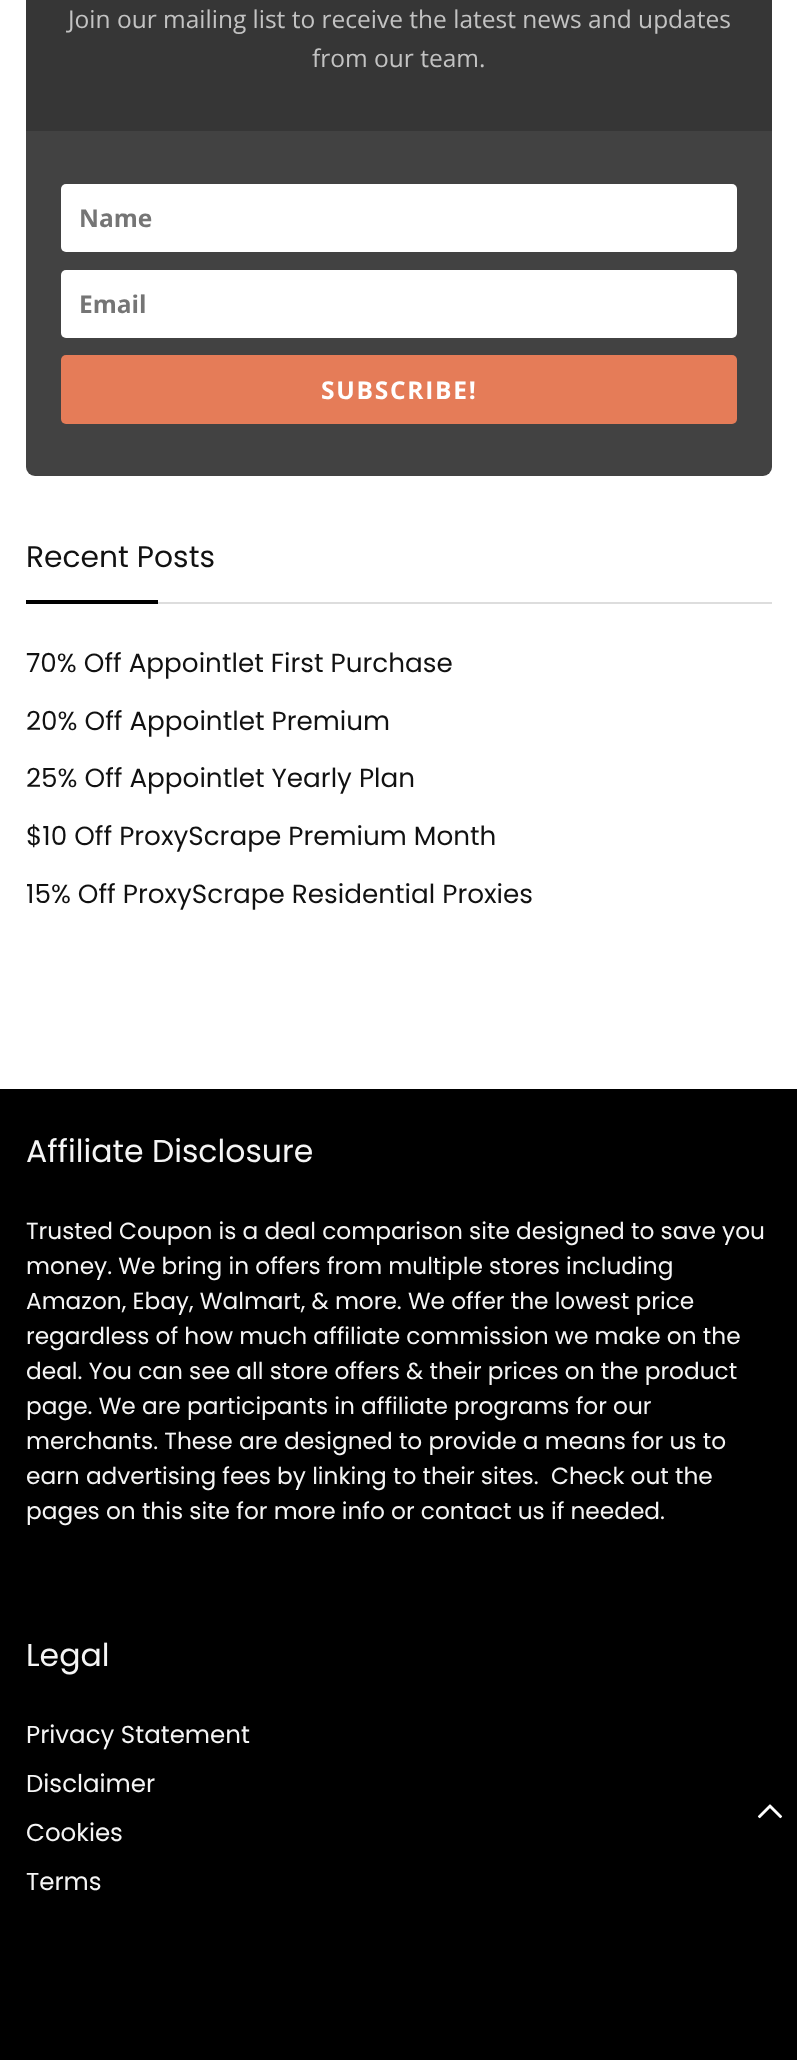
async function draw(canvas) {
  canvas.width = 797;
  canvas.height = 2060;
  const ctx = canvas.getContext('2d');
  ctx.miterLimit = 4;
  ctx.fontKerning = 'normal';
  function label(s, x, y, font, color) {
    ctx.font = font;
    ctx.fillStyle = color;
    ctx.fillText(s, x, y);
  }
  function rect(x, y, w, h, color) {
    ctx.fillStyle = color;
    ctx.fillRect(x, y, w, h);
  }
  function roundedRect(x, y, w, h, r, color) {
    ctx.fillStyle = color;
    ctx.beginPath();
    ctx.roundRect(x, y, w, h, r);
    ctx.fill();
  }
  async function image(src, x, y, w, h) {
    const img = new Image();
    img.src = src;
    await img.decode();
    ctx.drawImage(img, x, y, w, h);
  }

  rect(0, 0, 797, 2060, '#fff');
  rect(26, 0, 746, 131, '#363636');
  label('Join our mailing list to receive the latest news and updates', 68, 28, '24.5px Open Sans', '#c3c3c3');
  label('from our team.', 312, 67, '24.5px Open Sans', '#c3c3c3');
  ctx.fillStyle = '#424242';
  ctx.beginPath();
  ctx.roundRect(26, 131, 746, 345, [0, 0, 9, 9]);
  ctx.fill();
  roundedRect(61, 184, 676, 68, 5, '#fff');
  label('Name', 79, 227, 'bold 24.5px Open Sans', '#757575');
  roundedRect(61, 270, 676, 68, 5, '#fff');
  label('Email', 79, 313, 'bold 24.5px Open Sans', '#757575');
  roundedRect(61, 355, 676, 69, 5, '#e57c58');
  ctx.letterSpacing = '1.75px';
  label('SUBSCRIBE!', 321, 399, 'bold 24.5px Open Sans', '#fff');
  rect(158, 602, 614, 2, '#ddd');
  ctx.letterSpacing = '0px';
  label('Recent Posts', 26, 567, '29.75px Poppins', '#111');
  rect(26, 600, 132, 4, '#000');
  label('70% Off Appointlet First Purchase', 26, 672, '26.25px Poppins', '#111');
  label('20% Off Appointlet Premium', 26, 730, '26.25px Poppins', '#111');
  label('25% Off Appointlet Yearly Plan', 26, 787, '26.25px Poppins', '#111');
  label('$10 Off ProxyScrape Premium Month', 26, 845, '26.25px Poppins', '#111');
  label('15% Off ProxyScrape Residential Proxies', 26, 903, '26.25px Poppins', '#111');
  rect(0, 1089, 797, 971, '#000');
  label('Affiliate Disclosure', 26, 1162, '31.5px Poppins', '#f5f5f5');
  label('Trusted Coupon is a deal comparison site designed to save you', 26, 1239, '23.25px Poppins', '#f5f5f5');
  label('money. We bring in offers from multiple stores including', 26, 1274, '23.25px Poppins', '#f5f5f5');
  label('Amazon, Ebay, Walmart, & more. We offer the lowest price', 26, 1309, '23.25px Poppins', '#f5f5f5');
  label('regardless of how much affiliate commission we make on the', 26, 1344, '23.25px Poppins', '#f5f5f5');
  label('deal. You can see all store offers & their prices on the product', 26, 1379, '23.25px Poppins', '#f5f5f5');
  label('page. We are participants in affiliate programs for our', 26, 1414, '23.25px Poppins', '#f5f5f5');
  label('merchants. These are designed to provide a means for us to', 26, 1449, '23.25px Poppins', '#f5f5f5');
  label('earn advertising fees by linking to their sites.  Check out the', 26, 1484, '23.25px Poppins', '#f5f5f5');
  label('pages on this site for more info or contact us if needed.', 26, 1519, '23.25px Poppins', '#f5f5f5');
  label('Legal', 26, 1666, '31.5px Poppins', '#f5f5f5');
  label('Privacy Statement', 26, 1743, '24.5px Poppins', '#f5f5f5');
  label('Disclaimer', 26, 1792, '24.5px Poppins', '#f5f5f5');
  label('Cookies', 26, 1841, '24.5px Poppins', '#f5f5f5');
  label('Terms', 26, 1890, '24.5px Poppins', '#f5f5f5');
  await image('assets/img1.png', 757, 1804, 26, 15);
}

draw(document.querySelector('canvas'));
